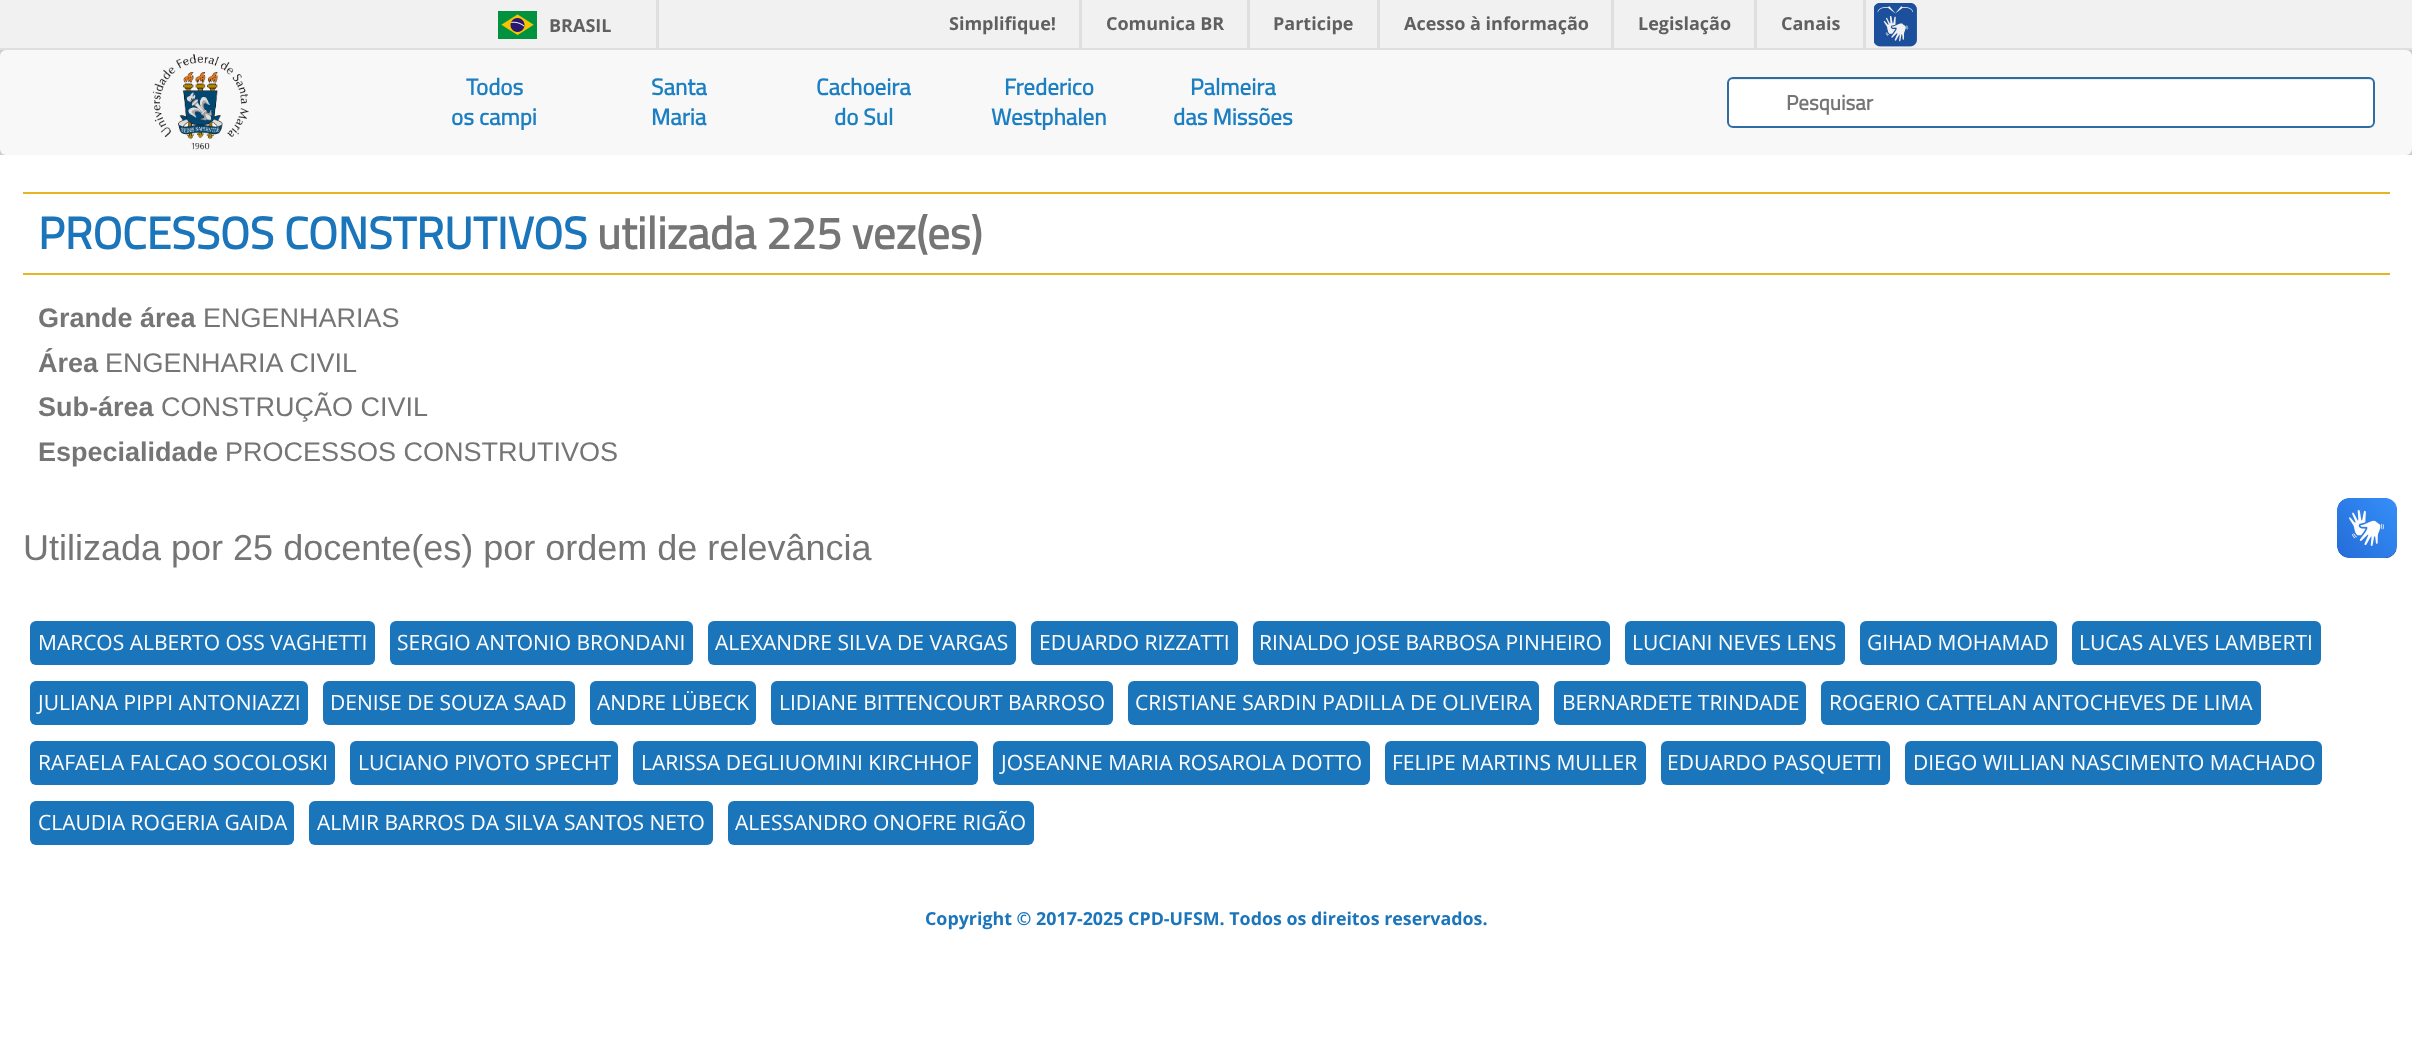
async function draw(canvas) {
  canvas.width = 2412;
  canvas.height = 1054;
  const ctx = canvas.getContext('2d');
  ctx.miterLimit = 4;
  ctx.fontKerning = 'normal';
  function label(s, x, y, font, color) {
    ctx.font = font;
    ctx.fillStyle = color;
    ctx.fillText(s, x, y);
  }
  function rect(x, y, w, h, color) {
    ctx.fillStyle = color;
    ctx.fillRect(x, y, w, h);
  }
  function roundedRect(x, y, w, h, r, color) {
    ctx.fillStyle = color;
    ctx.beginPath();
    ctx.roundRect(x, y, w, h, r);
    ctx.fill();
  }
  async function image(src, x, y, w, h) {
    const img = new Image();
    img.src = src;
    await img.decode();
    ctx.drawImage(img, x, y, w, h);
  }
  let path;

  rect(0, 0, 2412, 1054, '#fff');
  rect(0, 0, 2412, 48, '#f1f1f1');
  rect(0, 48, 2412, 2, '#dfdfdf');
  rect(656, 0, 3, 48, '#dfdfdf');
  await image('assets/img1.png', 498, 11, 39, 28);
  label('BRASIL', 549, 32, 'bold 18px Open Sans', '#606060');
  rect(1079, 0, 3, 48, '#dfdfdf');
  label('Simplifique!', 949, 30, 'bold 18px Open Sans', '#606060');
  rect(1247, 0, 3, 48, '#dfdfdf');
  label('Comunica BR', 1106, 30, 'bold 18px Open Sans', '#606060');
  rect(1377, 0, 3, 48, '#dfdfdf');
  label('Participe', 1273, 30, 'bold 18px Open Sans', '#606060');
  rect(1611, 0, 3, 48, '#dfdfdf');
  label('Acesso à informação', 1404, 30, 'bold 18px Open Sans', '#606060');
  rect(1754, 0, 3, 48, '#dfdfdf');
  label('Legislação', 1638, 30, 'bold 18px Open Sans', '#606060');
  rect(1863, 0, 3, 48, '#dfdfdf');
  label('Canais', 1781, 30, 'bold 18px Open Sans', '#606060');
  await image('assets/img2.png', 1874, 3, 43, 44);
  rect(0, 50, 2412, 105, '#ccc');
  roundedRect(0, 50, 2412, 105, 6, '#f8f8f8');
  await image('assets/img3.png', 152, 53, 97, 97);
  label('Todos', 466, 95, 'bold 23px Titillium Web', '#1c7fc2');
  label('os campi', 451, 125, 'bold 23px Titillium Web', '#1c7fc2');
  label('Santa', 651, 95, 'bold 23px Titillium Web', '#1c7fc2');
  label('Maria', 651, 125, 'bold 23px Titillium Web', '#1c7fc2');
  label('Cachoeira', 816, 95, 'bold 23px Titillium Web', '#1c7fc2');
  label('do Sul', 834, 125, 'bold 23px Titillium Web', '#1c7fc2');
  label('Frederico', 1004, 95, 'bold 23px Titillium Web', '#1c7fc2');
  label('Westphalen', 991, 125, 'bold 23px Titillium Web', '#1c7fc2');
  label('Palmeira', 1190, 95, 'bold 23px Titillium Web', '#1c7fc2');
  label('das Missões', 1173, 125, 'bold 23px Titillium Web', '#1c7fc2');
  roundedRect(1727, 77, 648, 51, 6, '#fff');
  ctx.fillStyle = '#ececec';
  path = new Path2D('M1732 80H2368C2371 80 2373 82 2373 84C2373 81 2371 78 2368 78H1733C1730 78 1728 81 1728 84C1728 82 1730 80 1732 80Z');
  ctx.fill(path);
  ctx.beginPath();
  ctx.roundRect(1728, 78, 646, 49, 5);
  ctx.strokeStyle = '#2e6da4';
  ctx.lineWidth = 2;
  ctx.stroke();
  label('Pesquisar', 1786, 110, 'bold 21px Titillium Web', '#757575');
  rect(23, 192, 2367, 2, '#e8b424');
  rect(23, 273, 2367, 2, '#e8b424');
  label('PROCESSOS CONSTRUTIVOS', 38, 249, 'bold 45px Titillium Web', '#1b75bb');
  label('utilizada 225 vez(es)', 597, 249, 'bold 45px Titillium Web', '#757575');
  label('Grande área', 38, 327, 'bold 27px Liberation Sans', '#757575');
  label('ENGENHARIAS', 203, 327, '27px Liberation Sans', '#757575');
  label('Área', 38, 372, 'bold 27px Liberation Sans', '#757575');
  label('ENGENHARIA CIVIL', 105, 372, '27px Liberation Sans', '#757575');
  label('Sub-área', 38, 416, 'bold 27px Liberation Sans', '#757575');
  label('CONSTRUÇÃO CIVIL', 161, 416, '27px Liberation Sans', '#757575');
  label('Especialidade', 38, 461, 'bold 27px Liberation Sans', '#757575');
  label('PROCESSOS CONSTRUTIVOS', 225, 461, '27px Liberation Sans', '#757575');
  label('Utilizada por 25 docente(es) por ordem de relevância', 23, 560, '36px Liberation Sans', '#757575');
  roundedRect(30, 621, 345, 44, 6, '#1b75bb');
  label('MARCOS ALBERTO OSS VAGHETTI', 38, 650, '21px Open Sans', '#fff');
  roundedRect(390, 621, 303, 44, 6, '#1b75bb');
  label('SERGIO ANTONIO BRONDANI', 397, 650, '21px Open Sans', '#fff');
  roundedRect(708, 621, 308, 44, 6, '#1b75bb');
  label('ALEXANDRE SILVA DE VARGAS', 715, 650, '21px Open Sans', '#fff');
  roundedRect(1031, 621, 207, 44, 6, '#1b75bb');
  label('EDUARDO RIZZATTI', 1039, 650, '21px Open Sans', '#fff');
  roundedRect(1253, 621, 357, 44, 6, '#1b75bb');
  label('RINALDO JOSE BARBOSA PINHEIRO', 1259, 650, '21px Open Sans', '#fff');
  roundedRect(1625, 621, 220, 44, 6, '#1b75bb');
  label('LUCIANI NEVES LENS', 1632, 650, '21px Open Sans', '#fff');
  roundedRect(1860, 621, 197, 44, 6, '#1b75bb');
  label('GIHAD MOHAMAD', 1867, 650, '21px Open Sans', '#fff');
  roundedRect(2072, 621, 249, 44, 6, '#1b75bb');
  label('LUCAS ALVES LAMBERTI', 2079, 650, '21px Open Sans', '#fff');
  roundedRect(30, 681, 278, 44, 6, '#1b75bb');
  label('JULIANA PIPPI ANTONIAZZI', 38, 710, '21px Open Sans', '#fff');
  roundedRect(323, 681, 252, 44, 6, '#1b75bb');
  label('DENISE DE SOUZA SAAD', 330, 710, '21px Open Sans', '#fff');
  roundedRect(590, 681, 166, 44, 6, '#1b75bb');
  label('ANDRE LÜBECK', 597, 710, '21px Open Sans', '#fff');
  roundedRect(771, 681, 342, 44, 6, '#1b75bb');
  label('LIDIANE BITTENCOURT BARROSO', 779, 710, '21px Open Sans', '#fff');
  roundedRect(1128, 681, 411, 44, 6, '#1b75bb');
  label('CRISTIANE SARDIN PADILLA DE OLIVEIRA', 1135, 710, '21px Open Sans', '#fff');
  roundedRect(1554, 681, 252, 44, 6, '#1b75bb');
  label('BERNARDETE TRINDADE', 1562, 710, '21px Open Sans', '#fff');
  roundedRect(1821, 681, 440, 44, 6, '#1b75bb');
  label('ROGERIO CATTELAN ANTOCHEVES DE LIMA', 1829, 710, '21px Open Sans', '#fff');
  roundedRect(30, 741, 305, 44, 6, '#1b75bb');
  label('RAFAELA FALCAO SOCOLOSKI', 38, 770, '21px Open Sans', '#fff');
  roundedRect(350, 741, 268, 44, 6, '#1b75bb');
  label('LUCIANO PIVOTO SPECHT', 358, 770, '21px Open Sans', '#fff');
  roundedRect(633, 741, 345, 44, 6, '#1b75bb');
  label('LARISSA DEGLIUOMINI KIRCHHOF', 641, 770, '21px Open Sans', '#fff');
  roundedRect(993, 741, 377, 44, 6, '#1b75bb');
  label('JOSEANNE MARIA ROSAROLA DOTTO', 1001, 770, '21px Open Sans', '#fff');
  roundedRect(1385, 741, 261, 44, 6, '#1b75bb');
  label('FELIPE MARTINS MULLER', 1392, 770, '21px Open Sans', '#fff');
  roundedRect(1661, 741, 229, 44, 6, '#1b75bb');
  label('EDUARDO PASQUETTI', 1667, 770, '21px Open Sans', '#fff');
  roundedRect(1905, 741, 417, 44, 6, '#1b75bb');
  label('DIEGO WILLIAN NASCIMENTO MACHADO', 1913, 770, '21px Open Sans', '#fff');
  roundedRect(30, 801, 264, 44, 6, '#1b75bb');
  label('CLAUDIA ROGERIA GAIDA', 38, 830, '21px Open Sans', '#fff');
  roundedRect(309, 801, 404, 44, 6, '#1b75bb');
  label('ALMIR BARROS DA SILVA SANTOS NETO', 317, 830, '21px Open Sans', '#fff');
  roundedRect(728, 801, 306, 44, 6, '#1b75bb');
  label('ALESSANDRO ONOFRE RIGÃO', 735, 830, '21px Open Sans', '#fff');
  label('Copyright © 2017-2025 CPD-UFSM. Todos os direitos reservados.', 925, 925, 'bold 17.85px Open Sans', '#1b75bb');
  await image('assets/img4.png', 2337, 498, 60, 60);
  await image('assets/img5.png', 2337, 498, 60, 60);
}

draw(document.querySelector('canvas'));
